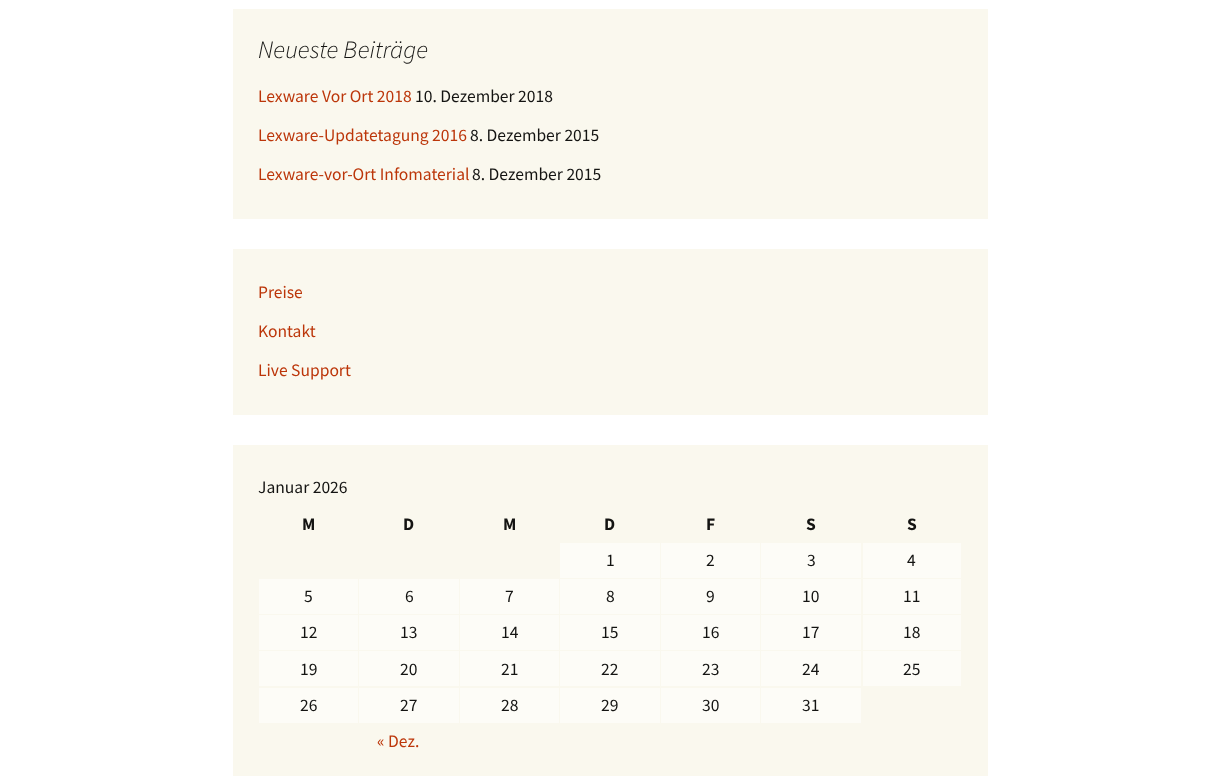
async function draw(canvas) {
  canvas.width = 1219;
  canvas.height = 776;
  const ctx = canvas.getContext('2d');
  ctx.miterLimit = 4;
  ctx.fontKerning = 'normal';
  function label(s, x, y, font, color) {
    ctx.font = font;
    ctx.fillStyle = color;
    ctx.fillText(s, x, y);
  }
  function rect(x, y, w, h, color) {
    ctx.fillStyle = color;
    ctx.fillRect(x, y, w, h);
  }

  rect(0, 0, 1219, 776, '#fff');
  rect(233, 9, 755, 210, '#faf8ee');
  label('Neueste Beiträge', 258, 58, 'italic 300 25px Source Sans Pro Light', '#141412');
  label('Lexware Vor Ort 2018', 258, 102, '17.5px Source Sans Pro', '#bc360a');
  label('10. Dezember 2018', 415, 102, '17.5px Source Sans Pro', '#141412');
  label('Lexware-Updatetagung 2016', 258, 141, '17.5px Source Sans Pro', '#bc360a');
  label('8. Dezember 2015', 470, 141, '17.5px Source Sans Pro', '#141412');
  label('Lexware-vor-Ort Infomaterial', 258, 180, '17.5px Source Sans Pro', '#bc360a');
  label('8. Dezember 2015', 472, 180, '17.5px Source Sans Pro', '#141412');
  rect(233, 249, 755, 166, '#faf8ee');
  label('Preise', 258, 298, '17.5px Source Sans Pro', '#bc360a');
  label('Kontakt', 258, 337, '17.5px Source Sans Pro', '#bc360a');
  label('Live Support', 258, 376, '17.5px Source Sans Pro', '#bc360a');
  rect(233, 445, 755, 331, '#faf8ee');
  label('Januar 2026', 258, 493, '17.5px Source Sans Pro', '#141412');
  label('M', 302, 530, 'bold 17.5px Source Sans Pro', '#141412');
  label('D', 403, 530, 'bold 17.5px Source Sans Pro', '#141412');
  label('M', 503, 530, 'bold 17.5px Source Sans Pro', '#141412');
  label('D', 604, 530, 'bold 17.5px Source Sans Pro', '#141412');
  label('F', 706, 530, 'bold 17.5px Source Sans Pro', '#141412');
  label('S', 806, 530, 'bold 17.5px Source Sans Pro', '#141412');
  label('S', 907, 530, 'bold 17.5px Source Sans Pro', '#141412');
  rect(560, 543, 100, 35, '#fdfcf7');
  label('1', 606, 566, '17.5px Source Sans Pro', '#141412');
  rect(661, 543, 99, 35, '#fdfcf7');
  label('2', 706, 566, '17.5px Source Sans Pro', '#141412');
  rect(761, 543, 100, 35, '#fdfcf7');
  label('3', 807, 566, '17.5px Source Sans Pro', '#141412');
  rect(863, 543, 98, 35, '#fdfcf7');
  label('4', 907, 566, '17.5px Source Sans Pro', '#141412');
  rect(259, 579, 99, 35, '#fdfcf7');
  label('5', 304, 602, '17.5px Source Sans Pro', '#141412');
  rect(359, 579, 100, 35, '#fdfcf7');
  label('6', 405, 602, '17.5px Source Sans Pro', '#141412');
  rect(460, 579, 99, 35, '#fdfcf7');
  label('7', 505, 602, '17.5px Source Sans Pro', '#141412');
  rect(560, 579, 100, 35, '#fdfcf7');
  label('8', 606, 602, '17.5px Source Sans Pro', '#141412');
  rect(661, 579, 99, 35, '#fdfcf7');
  label('9', 706, 602, '17.5px Source Sans Pro', '#141412');
  rect(761, 579, 100, 35, '#fdfcf7');
  label('10', 802, 602, '17.5px Source Sans Pro', '#141412');
  rect(863, 579, 98, 35, '#fdfcf7');
  label('11', 903, 602, '17.5px Source Sans Pro', '#141412');
  rect(259, 615, 99, 35, '#fdfcf7');
  label('12', 300, 638, '17.5px Source Sans Pro', '#141412');
  rect(359, 615, 100, 35, '#fdfcf7');
  label('13', 400, 638, '17.5px Source Sans Pro', '#141412');
  rect(460, 615, 99, 35, '#fdfcf7');
  label('14', 501, 638, '17.5px Source Sans Pro', '#141412');
  rect(560, 615, 100, 35, '#fdfcf7');
  label('15', 601, 638, '17.5px Source Sans Pro', '#141412');
  rect(661, 615, 99, 35, '#fdfcf7');
  label('16', 702, 638, '17.5px Source Sans Pro', '#141412');
  rect(761, 615, 100, 35, '#fdfcf7');
  label('17', 802, 638, '17.5px Source Sans Pro', '#141412');
  rect(863, 615, 98, 35, '#fdfcf7');
  label('18', 903, 638, '17.5px Source Sans Pro', '#141412');
  rect(259, 651, 99, 35, '#fdfcf7');
  label('19', 300, 675, '17.5px Source Sans Pro', '#141412');
  rect(359, 651, 100, 35, '#fdfcf7');
  label('20', 400, 675, '17.5px Source Sans Pro', '#141412');
  rect(460, 651, 99, 35, '#fdfcf7');
  label('21', 501, 675, '17.5px Source Sans Pro', '#141412');
  rect(560, 651, 100, 35, '#fdfcf7');
  label('22', 601, 675, '17.5px Source Sans Pro', '#141412');
  rect(661, 651, 99, 35, '#fdfcf7');
  label('23', 702, 675, '17.5px Source Sans Pro', '#141412');
  rect(761, 651, 100, 35, '#fdfcf7');
  label('24', 802, 675, '17.5px Source Sans Pro', '#141412');
  rect(863, 651, 98, 35, '#fdfcf7');
  label('25', 903, 675, '17.5px Source Sans Pro', '#141412');
  rect(259, 688, 99, 35, '#fdfcf7');
  label('26', 300, 711, '17.5px Source Sans Pro', '#141412');
  rect(359, 688, 100, 35, '#fdfcf7');
  label('27', 400, 711, '17.5px Source Sans Pro', '#141412');
  rect(460, 688, 99, 35, '#fdfcf7');
  label('28', 501, 711, '17.5px Source Sans Pro', '#141412');
  rect(560, 688, 100, 35, '#fdfcf7');
  label('29', 601, 711, '17.5px Source Sans Pro', '#141412');
  rect(661, 688, 99, 35, '#fdfcf7');
  label('30', 702, 711, '17.5px Source Sans Pro', '#141412');
  rect(761, 688, 100, 35, '#fdfcf7');
  label('31', 802, 711, '17.5px Source Sans Pro', '#141412');
  label('« Dez.', 377, 747, '17.5px Source Sans Pro', '#bc360a');
}

draw(document.querySelector('canvas'));
